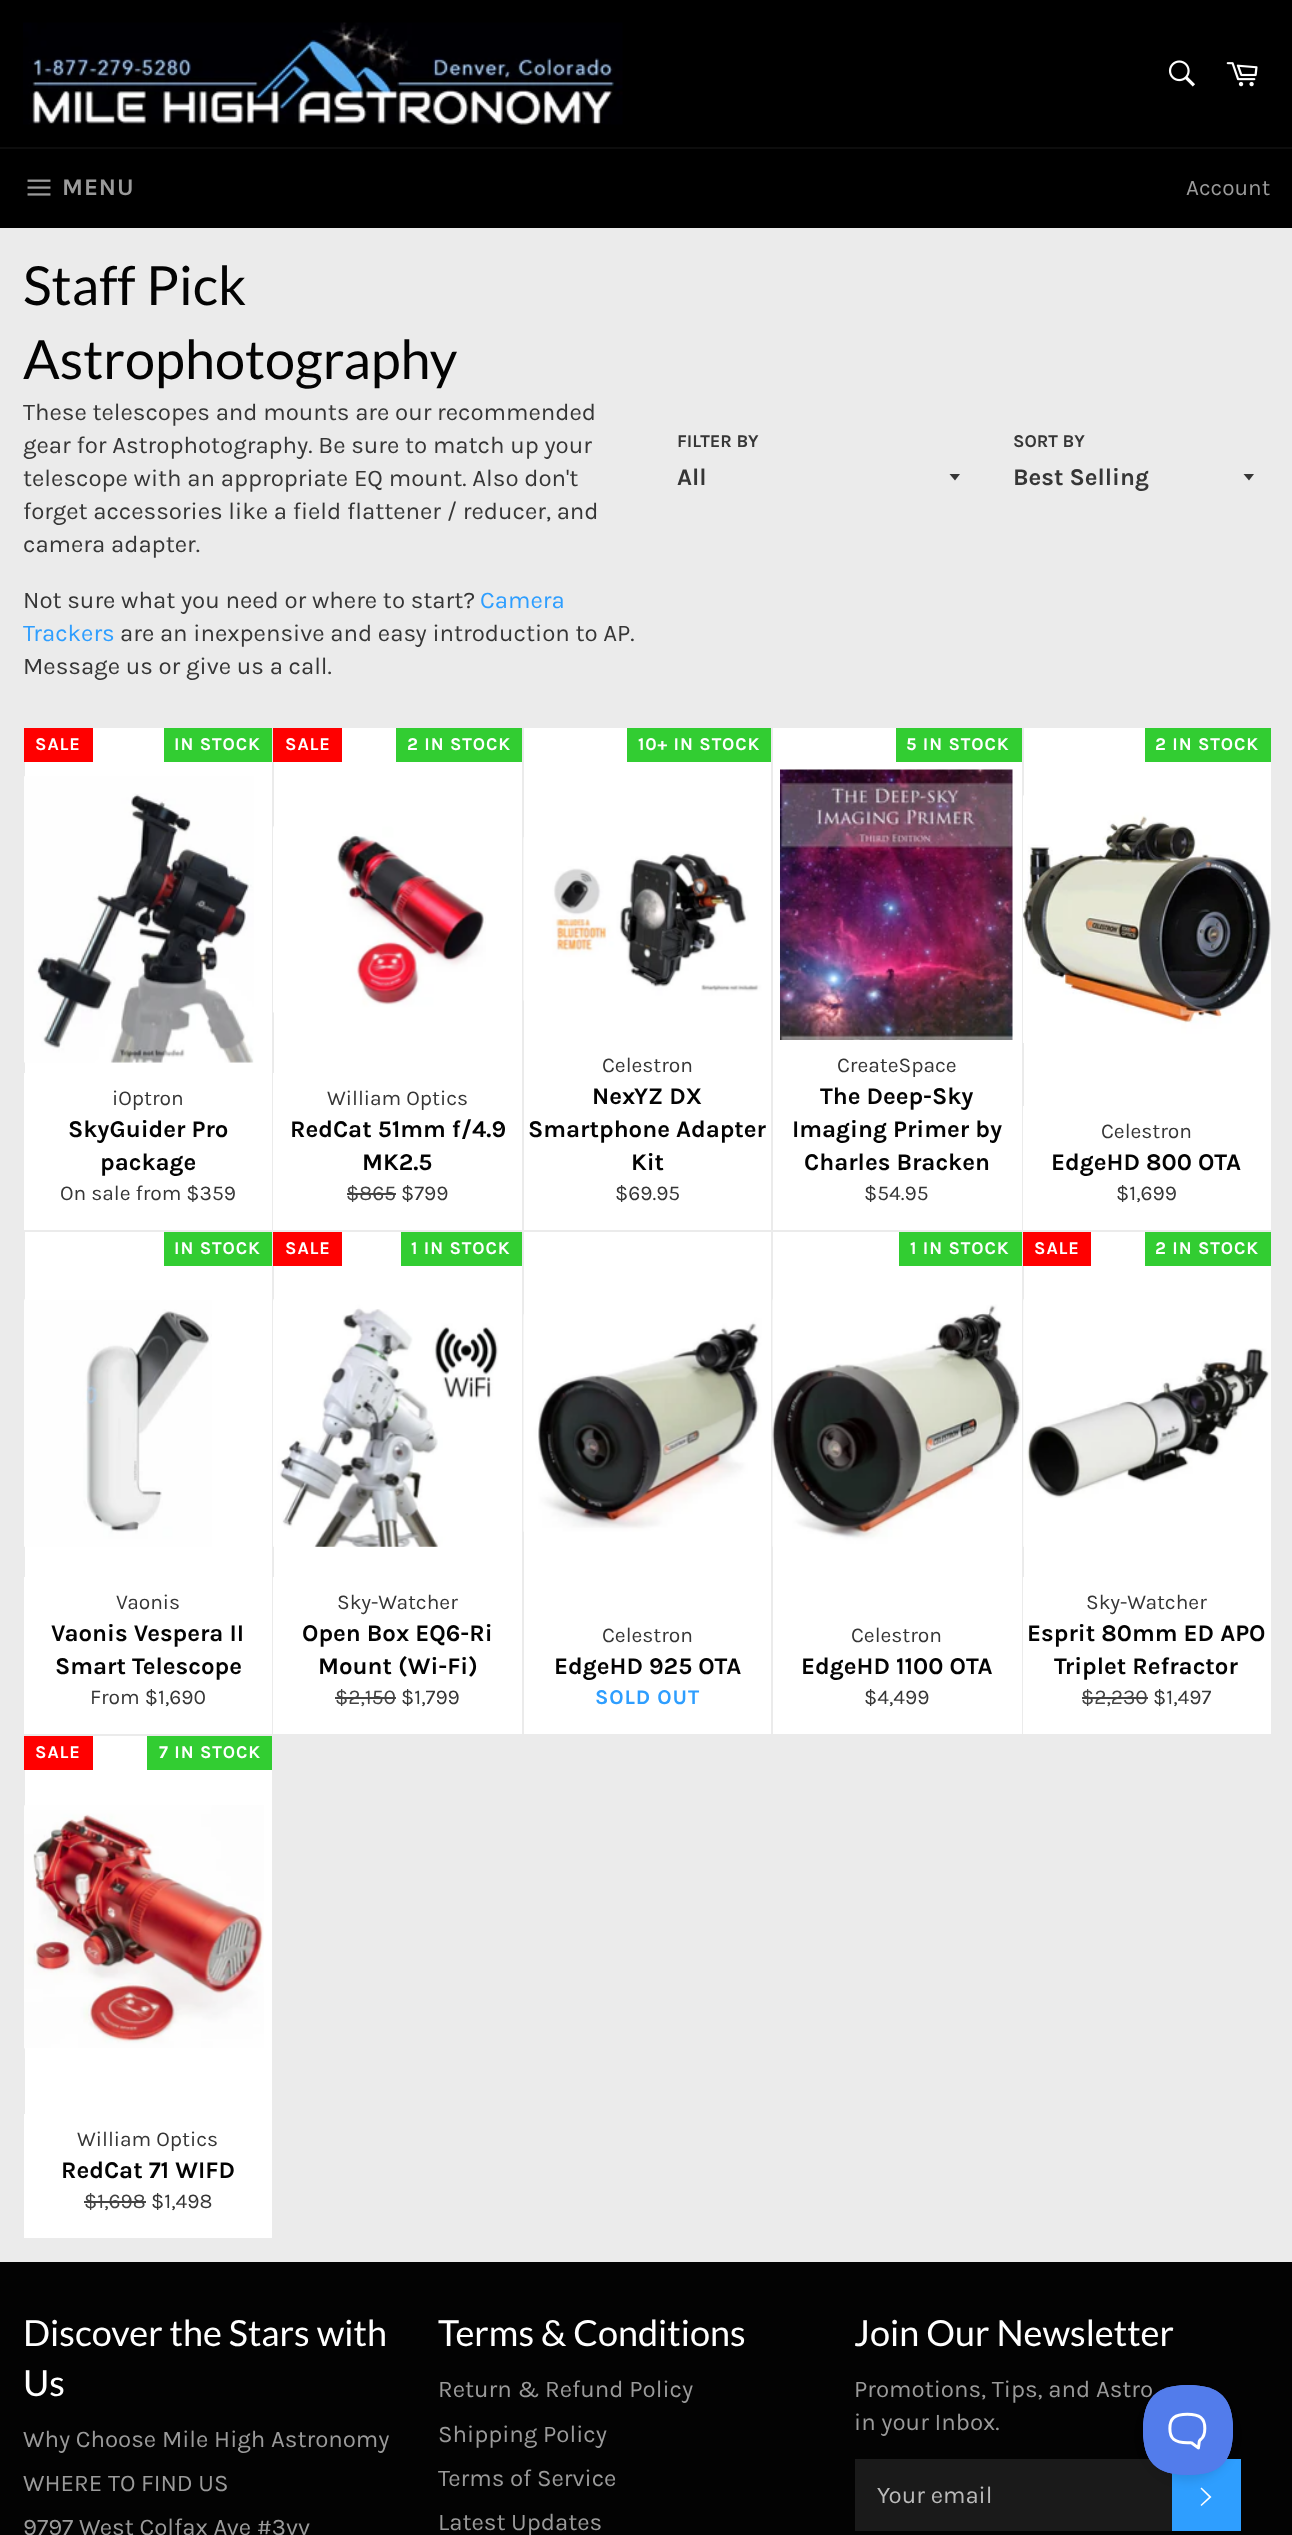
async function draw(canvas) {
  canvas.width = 1292;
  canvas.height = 2535;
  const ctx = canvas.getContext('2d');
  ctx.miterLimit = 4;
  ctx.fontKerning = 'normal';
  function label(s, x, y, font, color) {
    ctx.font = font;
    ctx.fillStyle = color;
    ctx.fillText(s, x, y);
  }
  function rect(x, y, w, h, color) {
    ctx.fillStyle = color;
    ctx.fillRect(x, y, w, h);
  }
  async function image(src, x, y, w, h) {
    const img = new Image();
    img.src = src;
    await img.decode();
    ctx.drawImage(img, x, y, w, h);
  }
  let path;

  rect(0, 0, 1292, 2535, '#ebebeb');
  rect(0, 0, 1292, 147, '#000');
  await image('assets/img1.png', 23, 22, 600, 103);
  await image('assets/img2.png', 1168, 60, 27, 27);
  await image('assets/img3.png', 1226, 62, 32, 25);
  rect(0, 149, 1292, 79, '#000');
  rect(0, 147, 1292, 2, '#0d0d0d');
  await image('assets/img4.png', 27, 179, 24, 17);
  ctx.letterSpacing = '0.9px';
  label('MENU', 62, 195, 'bold 24px Karla', '#9a9a9a');
  ctx.letterSpacing = '0px';
  label('Account', 1186, 195, '22.5px Karla', '#9a9a9a');
  label('Staff Pick', 23, 305, '54px Lato', '#030303');
  label('Astrophotography', 23, 379, '54px Lato', '#030303');
  label('These telescopes and mounts are our recommended', 23, 420, '24px Karla', '#363636');
  label('gear for Astrophotography. Be sure to match up your', 23, 453, '24px Karla', '#363636');
  label('telescope with an appropriate EQ mount. Also don\'t', 23, 486, '24px Karla', '#363636');
  label('forget accessories like a field flattener / reducer, and', 23, 519, '24px Karla', '#363636');
  label('camera adapter.', 23, 552, '24px Karla', '#363636');
  label('Not sure what you need or where to start?', 23, 608, '24px Karla', '#363636');
  label('Camera', 480, 608, '24px Karla', '#2e9eff');
  label('Trackers', 23, 641, '24px Karla', '#2e9eff');
  label('are an inexpensive and easy introduction to AP.', 120, 641, '24px Karla', '#363636');
  label('Message us or give us a call.', 23, 674, '24px Karla', '#363636');
  label('FILTER BY', 677, 447, 'bold 18px Karla', '#363636');
  path = new Path2D('M949.5 474L955 480.5L960 474Z');
  ctx.fill(path);
  label('All', 677, 485, 'bold 24px Karla', '#363636');
  label('SORT BY', 1013, 447, 'bold 18px Karla', '#363636');
  path = new Path2D('M1243.5 474L1249 480.5L1254 474Z');
  ctx.fill(path);
  label('Best Selling', 1013, 485, 'bold 24px Karla', '#363636');
  rect(25, 728, 247, 345, '#fff');
  rect(24, 728, 69, 34, '#f00');
  ctx.letterSpacing = '0.9px';
  label('SALE', 35, 750, 'bold 18px Karla', '#fff');
  rect(164, 728, 108, 34, '#32cd32');
  label('IN STOCK', 174, 750, 'bold 18px Karla', '#fff');
  await image('assets/img5.png', 24, 776, 230, 287);
  rect(24, 1073, 248, 157, '#fff');
  ctx.letterSpacing = '0px';
  label('iOptron', 112, 1105, '21px Karla', '#363636');
  label('SkyGuider Pro', 68, 1137, 'bold 24px Karla', '#030303');
  label('package', 100, 1170, 'bold 24px Karla', '#030303');
  label('On sale from $359', 60, 1200, '21px Karla', '#363636');
  rect(274, 728, 248, 345, '#fff');
  rect(273, 728, 69, 34, '#f00');
  ctx.letterSpacing = '0.9px';
  label('SALE', 285, 750, 'bold 18px Karla', '#fff');
  rect(396, 728, 126, 34, '#32cd32');
  label('2 IN STOCK', 407, 750, 'bold 18px Karla', '#fff');
  await image('assets/img6.png', 273, 826, 213, 187);
  rect(273, 1073, 249, 157, '#fff');
  ctx.letterSpacing = '0px';
  label('William Optics', 327, 1105, '21px Karla', '#363636');
  label('RedCat 51mm f/4.9', 290, 1137, 'bold 24px Karla', '#030303');
  label('MK2.5', 362, 1170, 'bold 24px Karla', '#030303');
  label('$865', 346, 1200, '21px Karla', '#434343');
  rect(347, 1193, 49, 2, '#434343');
  label('$799', 401, 1200, '21px Karla', '#363636');
  rect(524, 728, 247, 502, '#fff');
  rect(627, 728, 144, 34, '#32cd32');
  ctx.letterSpacing = '0.9px';
  label('10+ IN STOCK', 638, 750, 'bold 18px Karla', '#fff');
  await image('assets/img7.png', 523, 837, 248, 164);
  ctx.letterSpacing = '0px';
  label('Celestron', 602, 1072, '21px Karla', '#363636');
  label('NexYZ DX', 592, 1104, 'bold 24px Karla', '#030303');
  label('Smartphone Adapter', 528, 1137, 'bold 24px Karla', '#030303');
  label('Kit', 631, 1170, 'bold 24px Karla', '#030303');
  label('$69.95', 615, 1200, '21px Karla', '#363636');
  rect(773, 728, 249, 502, '#fff');
  rect(896, 728, 126, 34, '#32cd32');
  ctx.letterSpacing = '0.9px';
  label('5 IN STOCK', 906, 750, 'bold 18px Karla', '#fff');
  await image('assets/img8.png', 780, 769, 233, 271);
  ctx.letterSpacing = '0px';
  label('CreateSpace', 837, 1072, '21px Karla', '#363636');
  label('The Deep-Sky', 820, 1104, 'bold 24px Karla', '#030303');
  label('Imaging Primer by', 792, 1137, 'bold 24px Karla', '#030303');
  label('Charles Bracken', 804, 1170, 'bold 24px Karla', '#030303');
  label('$54.95', 864, 1200, '21px Karla', '#363636');
  rect(1024, 728, 247, 378, '#fff');
  rect(1145, 728, 126, 34, '#32cd32');
  ctx.letterSpacing = '0.9px';
  label('2 IN STOCK', 1155, 750, 'bold 18px Karla', '#fff');
  await image('assets/img9.png', 1023, 795, 248, 248);
  rect(1023, 1106, 248, 124, '#fff');
  ctx.letterSpacing = '0px';
  label('Celestron', 1101, 1138, '21px Karla', '#363636');
  label('EdgeHD 800 OTA', 1051, 1170, 'bold 24px Karla', '#030303');
  label('$1,699', 1116, 1200, '21px Karla', '#363636');
  rect(25, 1232, 247, 345, '#fff');
  rect(164, 1232, 108, 34, '#32cd32');
  ctx.letterSpacing = '0.9px';
  label('IN STOCK', 174, 1254, 'bold 18px Karla', '#fff');
  await image('assets/img10.png', 24, 1299, 188, 248);
  rect(24, 1577, 248, 157, '#fff');
  ctx.letterSpacing = '0px';
  label('Vaonis', 116, 1609, '21px Karla', '#363636');
  label('Vaonis Vespera II', 51, 1641, 'bold 24px Karla', '#030303');
  label('Smart Telescope', 55, 1674, 'bold 24px Karla', '#030303');
  label('From $1,690', 90, 1704, '21px Karla', '#363636');
  rect(274, 1232, 248, 345, '#fff');
  rect(273, 1232, 69, 34, '#f00');
  ctx.letterSpacing = '0.9px';
  label('SALE', 285, 1254, 'bold 18px Karla', '#fff');
  rect(401, 1232, 121, 34, '#32cd32');
  label('1 IN STOCK', 411, 1254, 'bold 18px Karla', '#fff');
  await image('assets/img11.png', 273, 1299, 226, 248);
  rect(273, 1577, 249, 157, '#fff');
  ctx.letterSpacing = '0px';
  label('Sky-Watcher', 337, 1609, '21px Karla', '#363636');
  label('Open Box EQ6-Ri', 302, 1641, 'bold 24px Karla', '#030303');
  label('Mount (Wi-Fi)', 318, 1674, 'bold 24px Karla', '#030303');
  label('$2,150', 335, 1704, '21px Karla', '#434343');
  rect(335, 1697, 61, 2, '#434343');
  label('$1,799', 401, 1704, '21px Karla', '#363636');
  rect(524, 1232, 247, 502, '#fff');
  await image('assets/img12.png', 523, 1314, 248, 218);
  label('Celestron', 602, 1642, '21px Karla', '#363636');
  label('EdgeHD 925 OTA', 554, 1674, 'bold 24px Karla', '#030303');
  ctx.letterSpacing = '0.9px';
  label('SOLD OUT', 595, 1704, 'bold 21px Karla', '#2e9eff');
  rect(773, 1232, 249, 502, '#fff');
  rect(899, 1232, 123, 34, '#32cd32');
  label('1 IN STOCK', 910, 1254, 'bold 18px Karla', '#fff');
  await image('assets/img13.png', 772, 1299, 249, 248);
  ctx.letterSpacing = '0px';
  label('Celestron', 851, 1642, '21px Karla', '#363636');
  label('EdgeHD 1100 OTA', 801, 1674, 'bold 24px Karla', '#030303');
  label('$4,499', 864, 1704, '21px Karla', '#363636');
  rect(1024, 1232, 247, 345, '#fff');
  rect(1023, 1232, 68, 34, '#f00');
  ctx.letterSpacing = '0.9px';
  label('SALE', 1034, 1254, 'bold 18px Karla', '#fff');
  rect(1145, 1232, 126, 34, '#32cd32');
  label('2 IN STOCK', 1155, 1254, 'bold 18px Karla', '#fff');
  await image('assets/img14.png', 1023, 1299, 247, 248);
  rect(1023, 1577, 248, 157, '#fff');
  ctx.letterSpacing = '0px';
  label('Sky-Watcher', 1086, 1609, '21px Karla', '#363636');
  label('Esprit 80mm ED APO', 1027, 1641, 'bold 24px Karla', '#030303');
  label('Triplet Refractor', 1054, 1674, 'bold 24px Karla', '#030303');
  label('$2,230', 1081, 1704, '21px Karla', '#434343');
  rect(1082, 1697, 66, 2, '#434343');
  label('$1,497', 1153, 1704, '21px Karla', '#363636');
  rect(25, 1736, 247, 378, '#fff');
  rect(24, 1736, 69, 34, '#f00');
  ctx.letterSpacing = '0.9px';
  label('SALE', 35, 1758, 'bold 18px Karla', '#fff');
  rect(147, 1736, 125, 34, '#32cd32');
  label('7 IN STOCK', 159, 1758, 'bold 18px Karla', '#fff');
  await image('assets/img15.png', 24, 1805, 240, 244);
  rect(24, 2114, 248, 124, '#fff');
  ctx.letterSpacing = '0px';
  label('William Optics', 77, 2146, '21px Karla', '#363636');
  label('RedCat 71 WIFD', 61, 2178, 'bold 24px Karla', '#030303');
  label('$1,698', 84, 2208, '21px Karla', '#434343');
  rect(84, 2201, 62, 2, '#434343');
  label('$1,498', 151, 2208, '21px Karla', '#363636');
  rect(0, 2262, 1292, 273, '#030303');
  label('Discover the Stars with', 23, 2346, '36px Lato', '#fff');
  label('Us', 23, 2396, '36px Lato', '#fff');
  label('Why Choose Mile High Astronomy', 23, 2447, '24px Karla', '#9a9a9a');
  label('WHERE TO FIND US', 23, 2491, '24px Karla', '#9a9a9a');
  label('9797 West Colfax Ave #3vv', 23, 2535, '24px Karla', '#9a9a9a');
  label('Terms & Conditions', 438, 2346, '36px Lato', '#fff');
  label('Return & Refund Policy', 438, 2397, '24px Karla', '#9a9a9a');
  label('Shipping Policy', 438, 2442, '24px Karla', '#9a9a9a');
  label('Terms of Service', 438, 2486, '24px Karla', '#9a9a9a');
  label('Latest Updates', 438, 2530, '24px Karla', '#9a9a9a');
  label('Join Our Newsletter', 854, 2346, '36px Lato', '#fff');
  label('Promotions, Tips, and Astro', 854, 2397, '24px Karla', '#9a9a9a');
  label('in your Inbox.', 854, 2430, '24px Karla', '#9a9a9a');
  rect(855, 2459, 317, 72, '#1a1a1a');
  label('Your email', 877, 2503, '24px Karla', '#bababa');
  rect(1172, 2459, 69, 72, '#2e9eff');
  ctx.fillStyle = '#fff';
  path = new Path2D('M1200.5 2488.5L1201.5 2487.5L1211.5 2497L1201.5 2506L1200.5 2505L1209 2497Z');
  ctx.fill(path);
  ctx.fillStyle = '#0000001a';
  ctx.filter = 'blur(5px)';
  ctx.beginPath();
  ctx.roundRect(1143, 2391, 90, 90, 45);
  ctx.fill();
  ctx.filter = 'none';
  await image('assets/img16.png', 1143, 2385, 90, 90);
}

draw(document.querySelector('canvas'));
